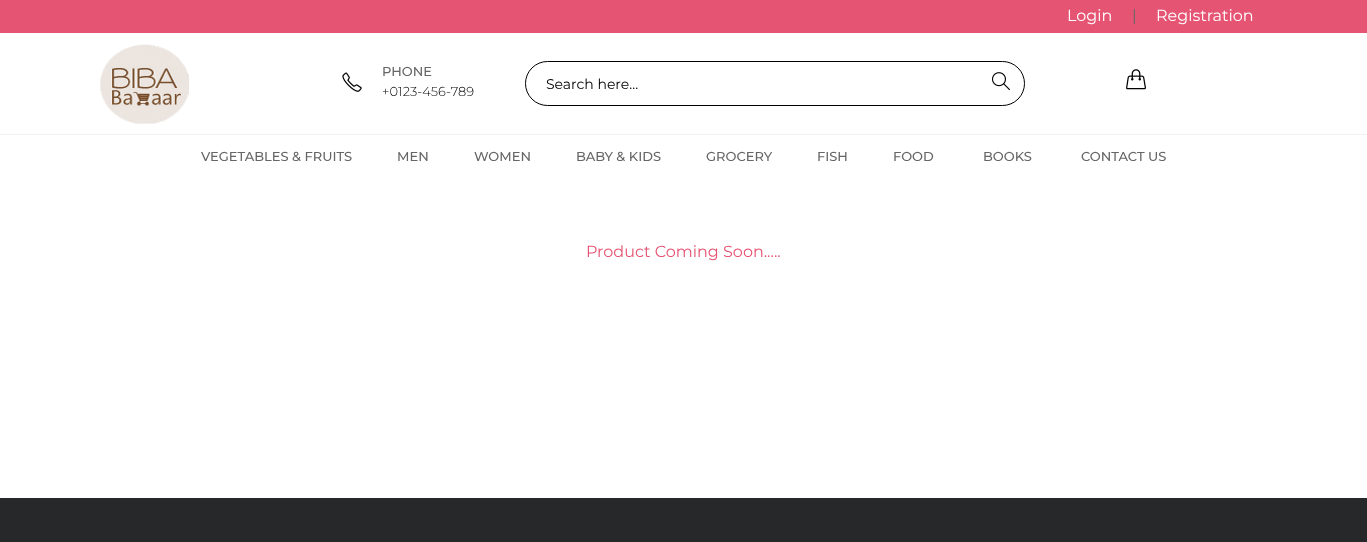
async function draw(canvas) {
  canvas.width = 1367;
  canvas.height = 542;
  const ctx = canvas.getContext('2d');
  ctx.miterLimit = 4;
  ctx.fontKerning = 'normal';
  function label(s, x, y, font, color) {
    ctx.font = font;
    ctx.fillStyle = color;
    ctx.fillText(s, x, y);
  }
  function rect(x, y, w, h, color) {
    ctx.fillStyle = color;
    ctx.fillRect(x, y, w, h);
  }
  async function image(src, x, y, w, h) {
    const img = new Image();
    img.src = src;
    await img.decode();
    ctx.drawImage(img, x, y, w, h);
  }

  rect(0, 0, 1367, 542, '#fff');
  rect(0, 0, 1367, 33, '#e55472');
  label('Login', 1067, 21, '16px Montserrat', '#fff');
  label('|', 1132, 21, '16px Montserrat', '#666');
  label('Registration', 1156, 21, '16px Montserrat', '#fff');
  await image('assets/img1.png', 100, 44, 89, 80);
  await image('assets/img2.png', 342, 72, 20, 20);
  label('PHONE', 382, 76, '500 13px Montserrat', '#666');
  label('+0123-456-789', 382, 96, '300 13px Montserrat', '#000');
  ctx.beginPath();
  ctx.roundRect(525.5, 61.5, 499, 44, 22);
  ctx.strokeStyle = '#000';
  ctx.stroke();
  label('Search here...', 546, 89, '14px Montserrat', '#000');
  await image('assets/img3.png', 992, 72, 18, 19);
  await image('assets/img4.png', 1126, 69, 20, 21);
  rect(0, 134, 1367, 1, '#f0f0f0');
  label('VEGETABLES & FRUITS', 201, 161, '500 13px Montserrat', '#666');
  label('MEN', 397, 161, '500 13px Montserrat', '#666');
  label('WOMEN', 474, 161, '500 13px Montserrat', '#666');
  label('BABY & KIDS', 576, 161, '500 13px Montserrat', '#666');
  label('GROCERY', 706, 161, '500 13px Montserrat', '#666');
  label('FISH', 817, 161, '500 13px Montserrat', '#666');
  label('FOOD', 893, 161, '500 13px Montserrat', '#666');
  label('BOOKS', 983, 161, '500 13px Montserrat', '#666');
  label('CONTACT US', 1081, 161, '500 13px Montserrat', '#666');
  label('Product Coming Soon.....', 586, 257, '16px Montserrat', '#e55472');
  rect(0, 498, 1367, 44, '#272829');
}

draw(document.querySelector('canvas'));
